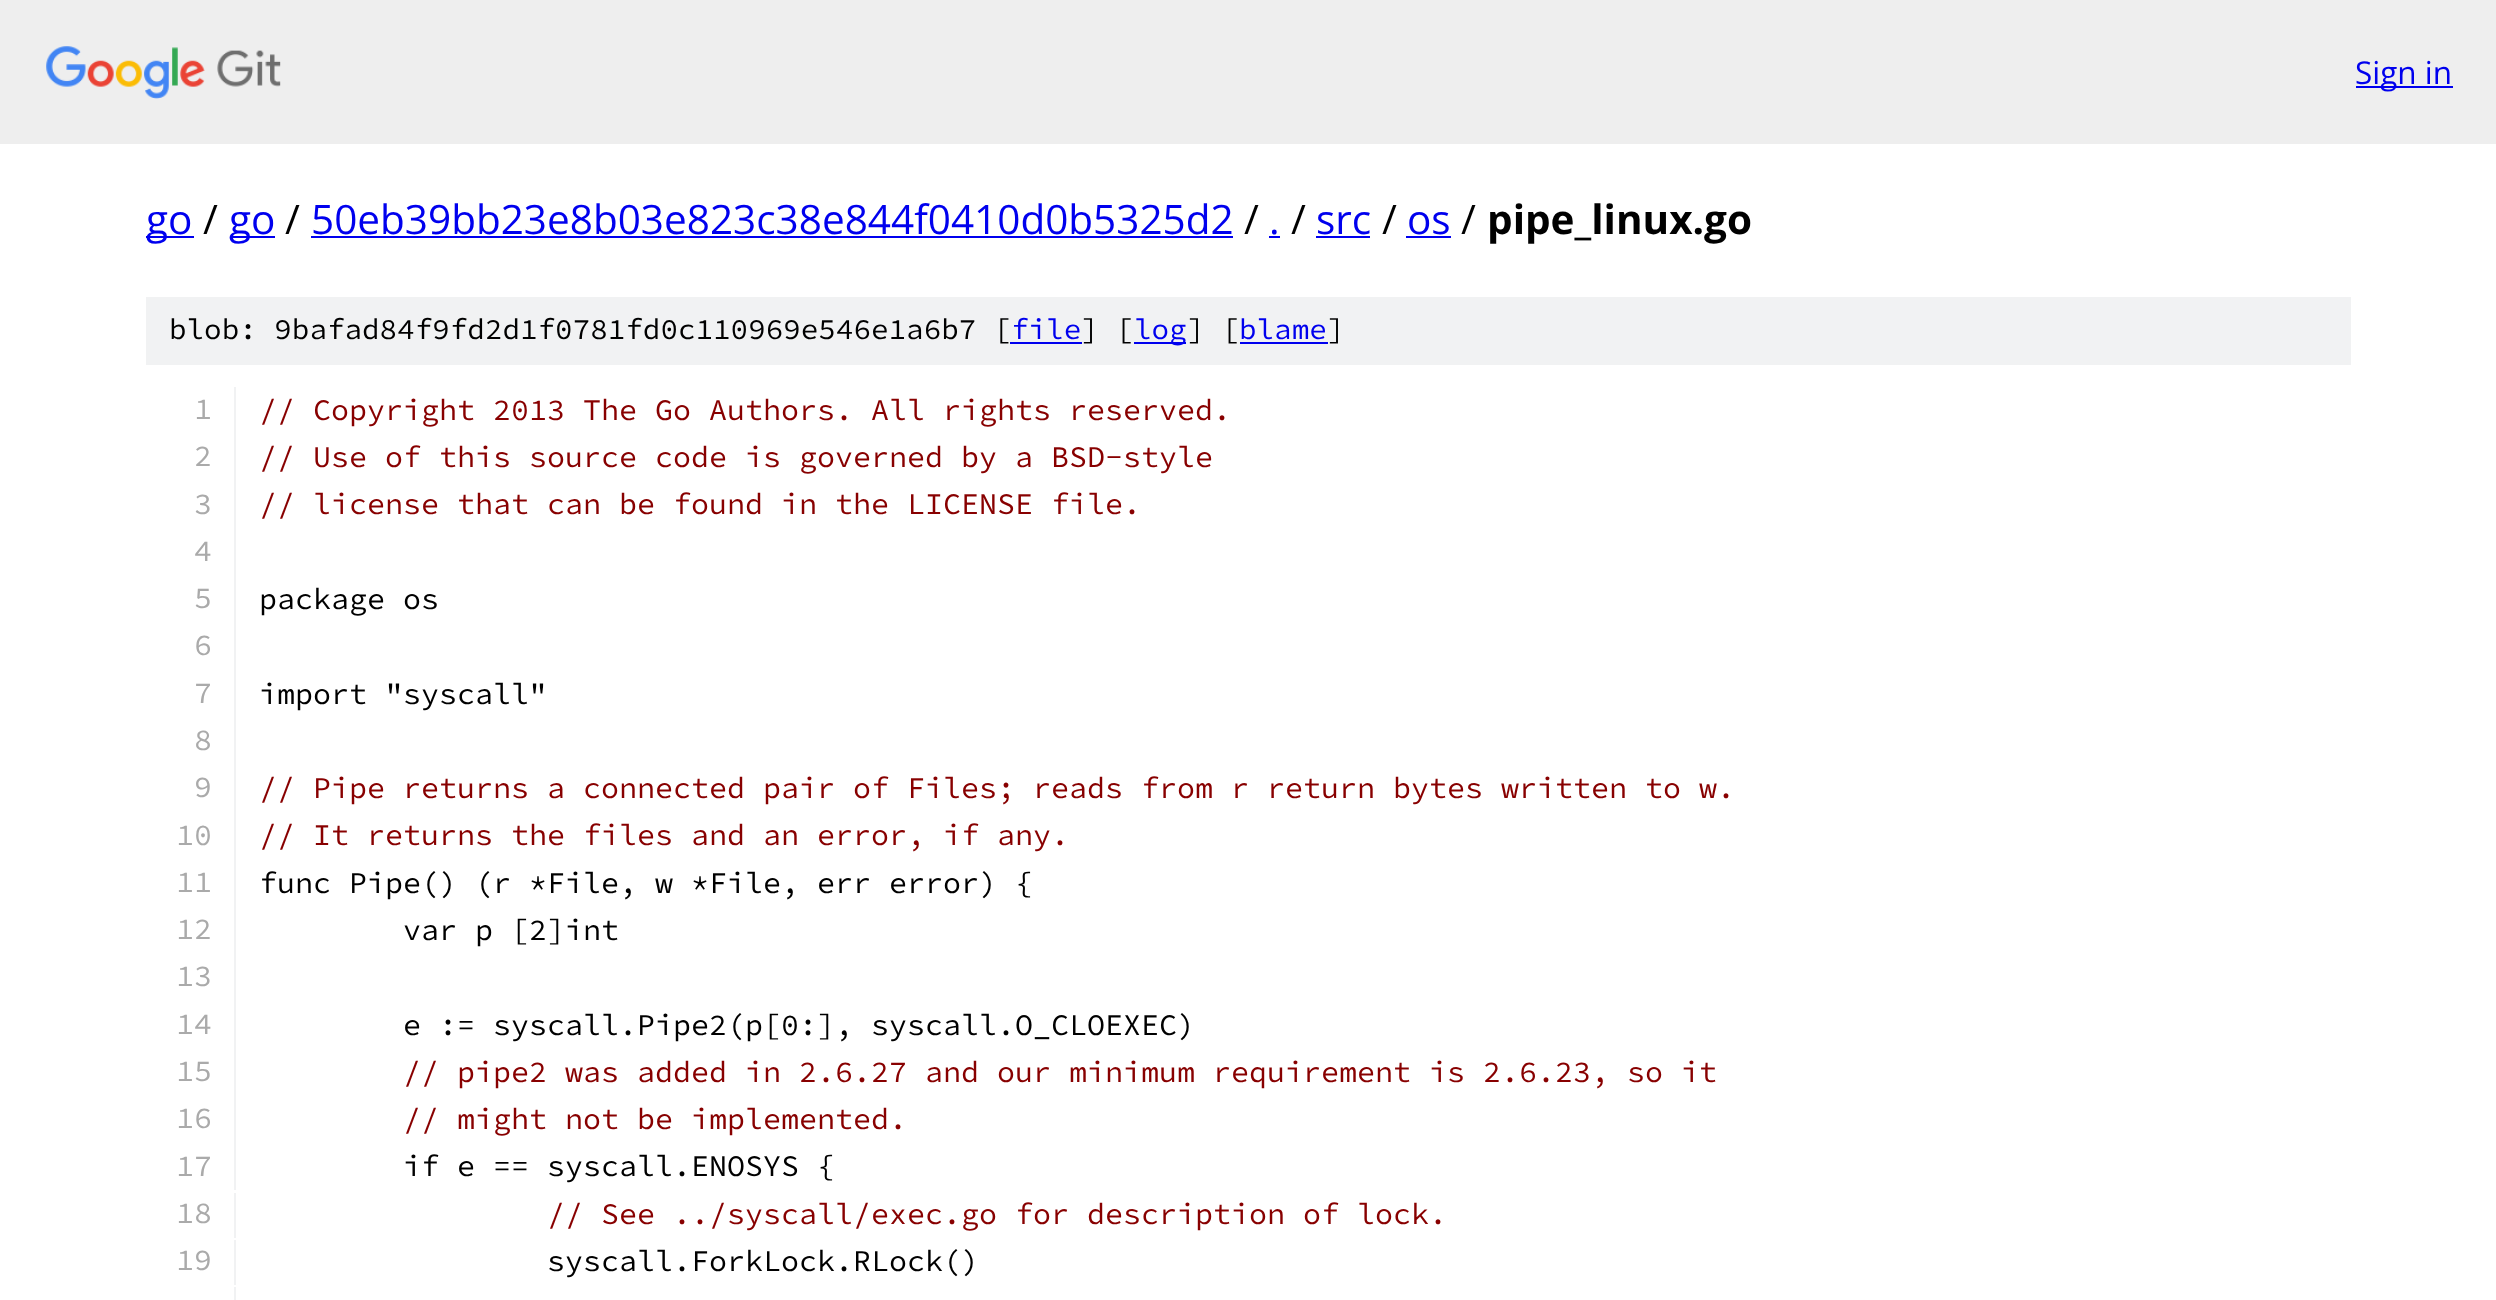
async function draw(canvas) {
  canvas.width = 2496;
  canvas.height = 1300;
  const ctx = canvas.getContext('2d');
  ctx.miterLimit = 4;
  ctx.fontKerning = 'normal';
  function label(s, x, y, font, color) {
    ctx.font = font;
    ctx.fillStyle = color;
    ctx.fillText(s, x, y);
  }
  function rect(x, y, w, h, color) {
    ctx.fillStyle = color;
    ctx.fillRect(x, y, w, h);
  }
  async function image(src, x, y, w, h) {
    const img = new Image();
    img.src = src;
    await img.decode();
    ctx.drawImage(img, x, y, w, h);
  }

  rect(0, 0, 2496, 1300, '#fff');
  rect(0, 0, 2496, 144, '#eee');
  await image('assets/img1.png', 46, 46, 235, 53);
  rect(2356, 86, 97, 2, '#00e');
  label('Sign in', 2355, 84, '31.5px Open Sans', '#00e');
  rect(146, 236, 48, 2, '#00e');
  label('go', 146, 234, '40.5px Open Sans', '#00e');
  label('/', 203, 234, '40.5px Open Sans', '#000');
  rect(230, 236, 45, 2, '#00e');
  label('go', 229, 234, '40.5px Open Sans', '#00e');
  label('/', 285, 234, '40.5px Open Sans', '#000');
  label('50eb39bb23e8b03e823c38e844f0410d0b5325d2', 311, 234, '40.5px Open Sans', '#00e');
  rect(311, 236, 922, 2, '#00e');
  label('/', 1244, 234, '40.5px Open Sans', '#000');
  label('.', 1269, 234, '40.5px Open Sans', '#00e');
  rect(1269, 236, 11, 2, '#00e');
  label('/', 1291, 234, '40.5px Open Sans', '#000');
  label('src', 1316, 234, '40.5px Open Sans', '#00e');
  rect(1316, 236, 54, 2, '#00e');
  label('/', 1382, 234, '40.5px Open Sans', '#000');
  label('os', 1407, 234, '40.5px Open Sans', '#00e');
  rect(1406, 236, 45, 2, '#00e');
  label('/', 1461, 234, '40.5px Open Sans', '#000');
  label('pipe_linux.go', 1487, 234, 'bold 40.5px Open Sans', '#000');
  rect(146, 297, 2205, 68, '#f1f2f3');
  label('blob: 9bafad84f9fd2d1f0781fd0c110969e546e1a6b7 [', 169, 339, '200 29.25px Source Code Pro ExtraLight', '#000');
  label('file', 1011, 339, '200 29.25px Source Code Pro ExtraLight', '#00e');
  rect(1010, 342, 72, 2, '#00e');
  label('] [', 1081, 339, '200 29.25px Source Code Pro ExtraLight', '#000');
  rect(1134, 342, 52, 2, '#00e');
  label('log', 1134, 339, '200 29.25px Source Code Pro ExtraLight', '#00e');
  label('] [', 1187, 339, '200 29.25px Source Code Pro ExtraLight', '#000');
  label('blame', 1239, 339, '200 29.25px Source Code Pro ExtraLight', '#00e');
  rect(1240, 342, 88, 2, '#00e');
  label(']', 1327, 339, '200 29.25px Source Code Pro ExtraLight', '#000');
  rect(234, 387, 2, 803, '#f1f2f3');
  label('1', 194, 419, '200 30px Source Code Pro ExtraLight', '#aaa');
  label('// Copyright 2013 The Go Authors. All rights reserved.', 259, 420, '200 30px Source Code Pro ExtraLight', '#800');
  label('2', 194, 466, '200 30px Source Code Pro ExtraLight', '#aaa');
  label('// Use of this source code is governed by a BSD-style', 259, 467, '200 30px Source Code Pro ExtraLight', '#800');
  label('3', 194, 514, '200 30px Source Code Pro ExtraLight', '#aaa');
  label('// license that can be found in the LICENSE file.', 259, 514, '200 30px Source Code Pro ExtraLight', '#800');
  label('4', 194, 561, '200 30px Source Code Pro ExtraLight', '#aaa');
  label('5', 194, 608, '200 30px Source Code Pro ExtraLight', '#aaa');
  label('package os', 259, 609, '200 30px Source Code Pro ExtraLight', '#000');
  label('6', 194, 655, '200 30px Source Code Pro ExtraLight', '#aaa');
  label('7', 194, 703, '200 30px Source Code Pro ExtraLight', '#aaa');
  label('import "syscall"', 259, 704, '200 30px Source Code Pro ExtraLight', '#000');
  label('8', 194, 750, '200 30px Source Code Pro ExtraLight', '#aaa');
  label('9', 194, 797, '200 30px Source Code Pro ExtraLight', '#aaa');
  label('// Pipe returns a connected pair of Files; reads from r return bytes written to w.', 259, 798, '200 30px Source Code Pro ExtraLight', '#800');
  label('10', 176, 845, '200 30px Source Code Pro ExtraLight', '#aaa');
  label('// It returns the files and an error, if any.', 259, 845, '200 30px Source Code Pro ExtraLight', '#800');
  label('11', 176, 892, '200 30px Source Code Pro ExtraLight', '#aaa');
  label('func Pipe() (r *File, w *File, err error) {', 259, 893, '200 30px Source Code Pro ExtraLight', '#000');
  label('12', 176, 939, '200 30px Source Code Pro ExtraLight', '#aaa');
  label('var p [2]int', 403, 940, '200 30px Source Code Pro ExtraLight', '#000');
  label('13', 176, 986, '200 30px Source Code Pro ExtraLight', '#aaa');
  label('14', 176, 1034, '200 30px Source Code Pro ExtraLight', '#aaa');
  label('e := syscall.Pipe2(p[0:], syscall.O_CLOEXEC)', 403, 1035, '200 30px Source Code Pro ExtraLight', '#000');
  label('15', 176, 1081, '200 30px Source Code Pro ExtraLight', '#aaa');
  label('// pipe2 was added in 2.6.27 and our minimum requirement is 2.6.23, so it', 403, 1082, '200 30px Source Code Pro ExtraLight', '#800');
  label('16', 176, 1128, '200 30px Source Code Pro ExtraLight', '#aaa');
  label('// might not be implemented.', 403, 1129, '200 30px Source Code Pro ExtraLight', '#800');
  label('17', 176, 1176, '200 30px Source Code Pro ExtraLight', '#aaa');
  label('if e == syscall.ENOSYS {', 403, 1176, '200 30px Source Code Pro ExtraLight', '#000');
  rect(234, 1193, 2, 45, '#f1f2f3');
  label('18', 176, 1223, '200 30px Source Code Pro ExtraLight', '#aaa');
  label('// See ../syscall/exec.go for description of lock.', 547, 1224, '200 30px Source Code Pro ExtraLight', '#800');
  rect(234, 1240, 2, 45, '#f1f2f3');
  label('19', 176, 1270, '200 30px Source Code Pro ExtraLight', '#aaa');
  label('syscall.ForkLock.RLock()', 547, 1271, '200 30px Source Code Pro ExtraLight', '#000');
  rect(234, 1287, 2, 13, '#f1f2f3');
}

draw(document.querySelector('canvas'));
